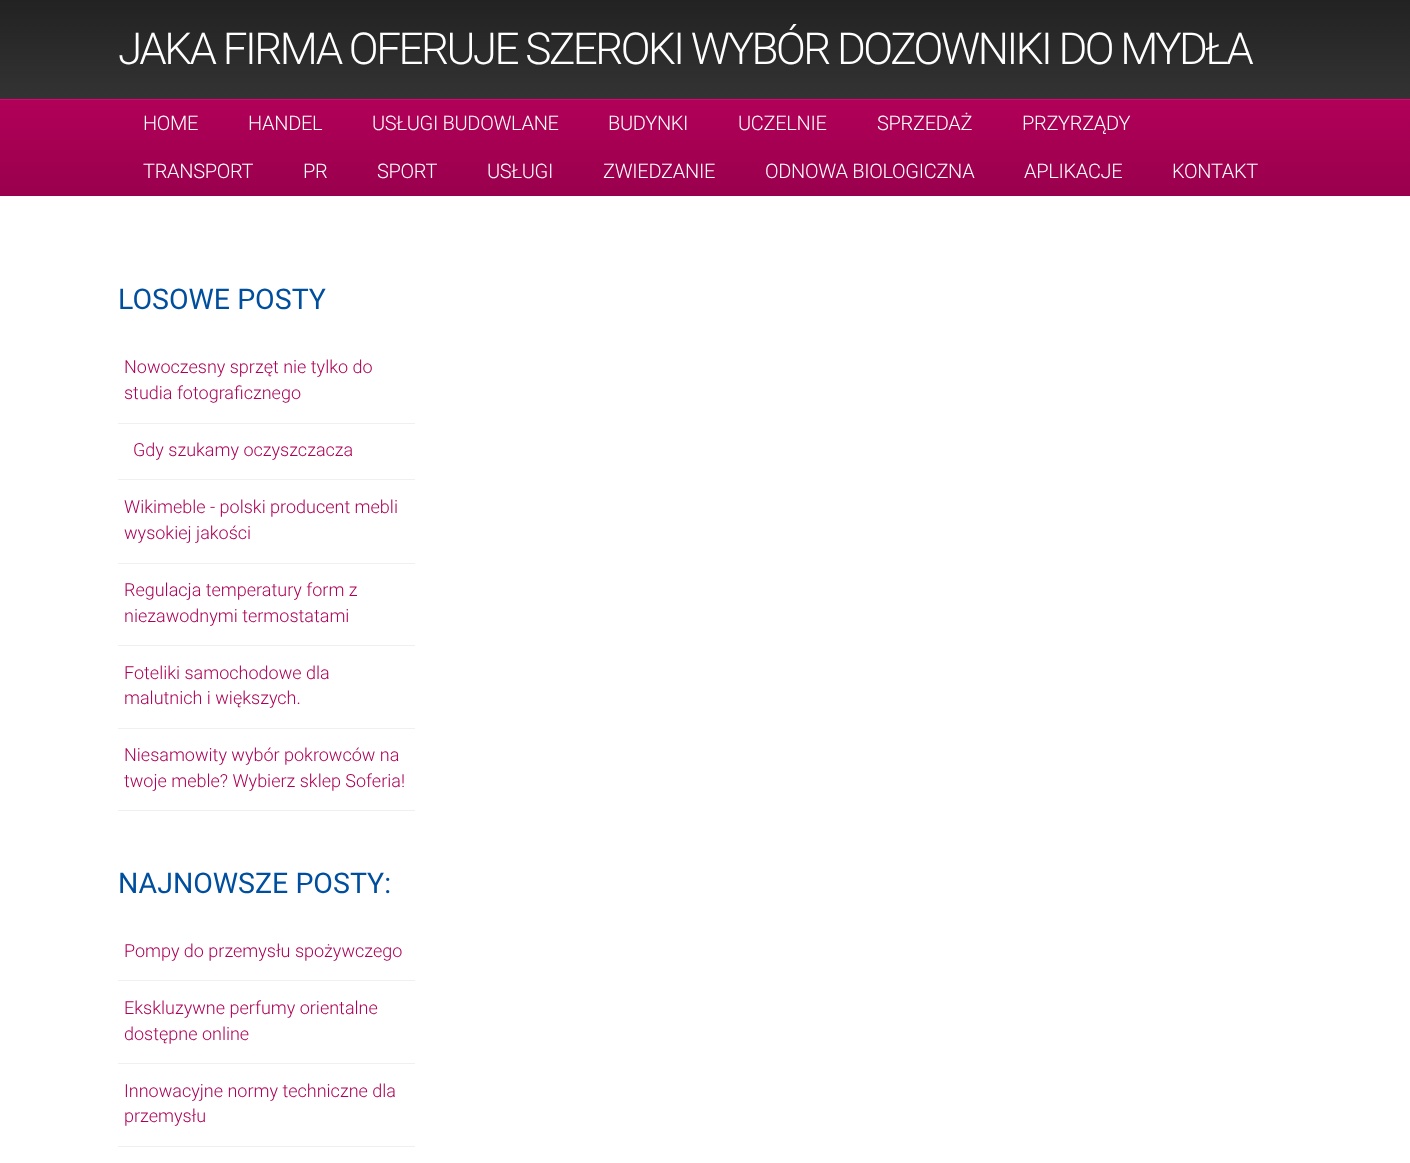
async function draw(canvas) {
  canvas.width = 1410;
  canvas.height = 1163;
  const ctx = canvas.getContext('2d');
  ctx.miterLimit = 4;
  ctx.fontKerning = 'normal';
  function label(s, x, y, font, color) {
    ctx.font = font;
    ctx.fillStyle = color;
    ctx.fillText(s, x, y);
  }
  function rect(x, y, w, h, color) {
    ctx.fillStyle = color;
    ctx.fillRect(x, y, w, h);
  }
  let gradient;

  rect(0, 0, 1410, 1163, '#fff');
  gradient = ctx.createLinearGradient(705, 0, 705, 99);
  gradient.addColorStop(0, '#222');
  gradient.addColorStop(1, '#333');
  ctx.fillStyle = gradient;
  ctx.fillRect(0, 0, 1410, 99);
  rect(0, 99, 1410, 1, '#e60073');
  ctx.letterSpacing = '-2.5px';
  label('JAKA FIRMA OFERUJE SZEROKI WYBÓR DOZOWNIKI DO MYDŁA', 118, 64, '300 44px Roboto', '#fff');
  gradient = ctx.createLinearGradient(705, 100, 705, 196);
  gradient.addColorStop(0, '#b10058');
  gradient.addColorStop(1, '#99004d');
  ctx.fillStyle = gradient;
  ctx.fillRect(0, 100, 1410, 96);
  ctx.letterSpacing = '-0.3px';
  label('HOME', 143, 130, '300 20px Roboto', '#fff');
  label('HANDEL', 248, 130, '300 20px Roboto', '#fff');
  label('USŁUGI BUDOWLANE', 372, 130, '300 20px Roboto', '#fff');
  label('BUDYNKI', 608, 130, '300 20px Roboto', '#fff');
  label('UCZELNIE', 738, 130, '300 20px Roboto', '#fff');
  label('SPRZEDAŻ', 877, 130, '300 20px Roboto', '#fff');
  label('PRZYRZĄDY', 1022, 130, '300 20px Roboto', '#fff');
  label('TRANSPORT', 143, 178, '300 20px Roboto', '#fff');
  label('PR', 303, 178, '300 20px Roboto', '#fff');
  label('SPORT', 377, 178, '300 20px Roboto', '#fff');
  label('USŁUGI', 487, 178, '300 20px Roboto', '#fff');
  label('ZWIEDZANIE', 603, 178, '300 20px Roboto', '#fff');
  label('ODNOWA BIOLOGICZNA', 765, 178, '300 20px Roboto', '#fff');
  label('APLIKACJE', 1024, 178, '300 20px Roboto', '#fff');
  label('KONTAKT', 1172, 178, '300 20px Roboto', '#fff');
  ctx.letterSpacing = '0px';
  label('LOSOWE POSTY', 118, 309, '28.5px Roboto', '#004f9e');
  rect(118, 423, 297, 1, '#f0f0f0');
  label('Nowoczesny sprzęt nie tylko do', 124, 373, '300 18px Roboto', '#ad0056');
  label('studia fotograficznego', 124, 399, '300 18px Roboto', '#ad0056');
  rect(118, 479, 297, 1, '#f0f0f0');
  label('Gdy szukamy oczyszczacza', 133, 456, '300 18px Roboto', '#ad0056');
  rect(118, 563, 297, 1, '#f0f0f0');
  label('Wikimeble - polski producent mebli', 124, 513, '300 18px Roboto', '#ad0056');
  label('wysokiej jakości', 124, 539, '300 18px Roboto', '#ad0056');
  rect(118, 645, 297, 1, '#f0f0f0');
  label('Regulacja temperatury form z', 124, 596, '300 18px Roboto', '#ad0056');
  label('niezawodnymi termostatami', 124, 622, '300 18px Roboto', '#ad0056');
  rect(118, 728, 297, 1, '#f0f0f0');
  label('Foteliki samochodowe dla', 124, 679, '300 18px Roboto', '#ad0056');
  label('malutnich i większych.', 124, 704, '300 18px Roboto', '#ad0056');
  rect(118, 810, 297, 1, '#f0f0f0');
  label('Niesamowity wybór pokrowców na', 124, 761, '300 18px Roboto', '#ad0056');
  label('twoje meble? Wybierz sklep Soferia!', 124, 787, '300 18px Roboto', '#ad0056');
  label('NAJNOWSZE POSTY:', 118, 893, '28.5px Roboto', '#004f9e');
  rect(118, 980, 297, 1, '#f0f0f0');
  label('Pompy do przemysłu spożywczego', 124, 957, '300 18px Roboto', '#ad0056');
  rect(118, 1063, 297, 1, '#f0f0f0');
  label('Ekskluzywne perfumy orientalne', 124, 1014, '300 18px Roboto', '#ad0056');
  label('dostępne online', 124, 1040, '300 18px Roboto', '#ad0056');
  rect(118, 1146, 297, 1, '#f0f0f0');
  label('Innowacyjne normy techniczne dla', 124, 1097, '300 18px Roboto', '#ad0056');
  label('przemysłu', 124, 1122, '300 18px Roboto', '#ad0056');
}

draw(document.querySelector('canvas'));
